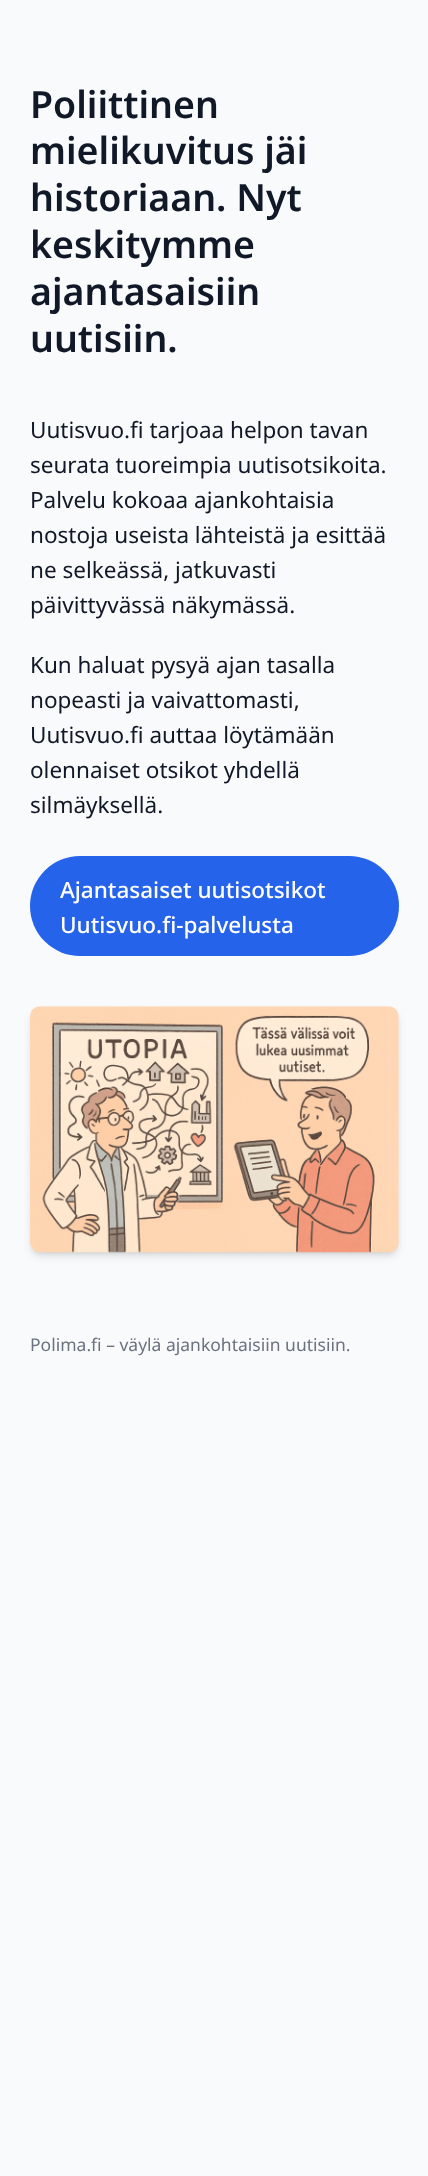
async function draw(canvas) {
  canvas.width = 428;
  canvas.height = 2176;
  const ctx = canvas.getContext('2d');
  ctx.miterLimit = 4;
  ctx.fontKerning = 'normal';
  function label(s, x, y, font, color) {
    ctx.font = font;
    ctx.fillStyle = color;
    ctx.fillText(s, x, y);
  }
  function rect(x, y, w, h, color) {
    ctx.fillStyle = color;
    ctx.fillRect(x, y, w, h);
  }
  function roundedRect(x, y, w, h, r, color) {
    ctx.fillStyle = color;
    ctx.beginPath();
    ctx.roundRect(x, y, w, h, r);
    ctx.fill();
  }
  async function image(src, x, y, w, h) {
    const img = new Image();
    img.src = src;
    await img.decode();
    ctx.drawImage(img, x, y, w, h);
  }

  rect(0, 0, 428, 2176, '#f9fafb');
  label('Poliittinen', 30, 118, '600 37.5px Noto Sans', '#111827');
  label('mielikuvitus jäi', 30, 164, '600 37.5px Noto Sans', '#111827');
  label('historiaan. Nyt', 30, 211, '600 37.5px Noto Sans', '#111827');
  label('keskitymme', 30, 258, '600 37.5px Noto Sans', '#111827');
  label('ajantasaisiin', 30, 305, '600 37.5px Noto Sans', '#111827');
  label('uutisiin.', 30, 352, '600 37.5px Noto Sans', '#111827');
  label('Uutisvuo.fi tarjoaa helpon tavan', 30, 438, '22.5px Noto Sans', '#111827');
  label('seurata tuoreimpia uutisotsikoita.', 30, 473, '22.5px Noto Sans', '#111827');
  label('Palvelu kokoaa ajankohtaisia', 30, 508, '22.5px Noto Sans', '#111827');
  label('nostoja useista lähteistä ja esittää', 30, 543, '22.5px Noto Sans', '#111827');
  label('ne selkeässä, jatkuvasti', 30, 578, '22.5px Noto Sans', '#111827');
  label('päivittyvässä näkymässä.', 30, 613, '22.5px Noto Sans', '#111827');
  label('Kun haluat pysyä ajan tasalla', 30, 673, '22.5px Noto Sans', '#111827');
  label('nopeasti ja vaivattomasti,', 30, 708, '22.5px Noto Sans', '#111827');
  label('Uutisvuo.fi auttaa löytämään', 30, 743, '22.5px Noto Sans', '#111827');
  label('olennaiset otsikot yhdellä', 30, 778, '22.5px Noto Sans', '#111827');
  label('silmäyksellä.', 30, 813, '22.5px Noto Sans', '#111827');
  roundedRect(30, 856, 369, 100, 50, '#2563eb');
  label('Ajantasaiset uutisotsikot', 60, 898, '500 22.5px Noto Sans', '#fff');
  label('Uutisvuo.fi-palvelusta', 60, 933, '500 22.5px Noto Sans', '#fff');
  ctx.fillStyle = '#0000001a';
  ctx.filter = 'blur(2.5px)';
  ctx.beginPath();
  ctx.roundRect(33, 1011, 363, 242, 8);
  ctx.fill();
  ctx.filter = 'none';
  ctx.filter = 'blur(4px)';
  ctx.beginPath();
  ctx.roundRect(31, 1013, 367, 243, 9);
  ctx.fill();
  ctx.filter = 'none';
  await image('assets/img1.png', 30, 1006, 369, 247);
  label('Polima.fi – väylä ajankohtaisiin uutisiin.', 30, 1351, '17.5px Noto Sans', '#6b7280');
}

draw(document.querySelector('canvas'));
